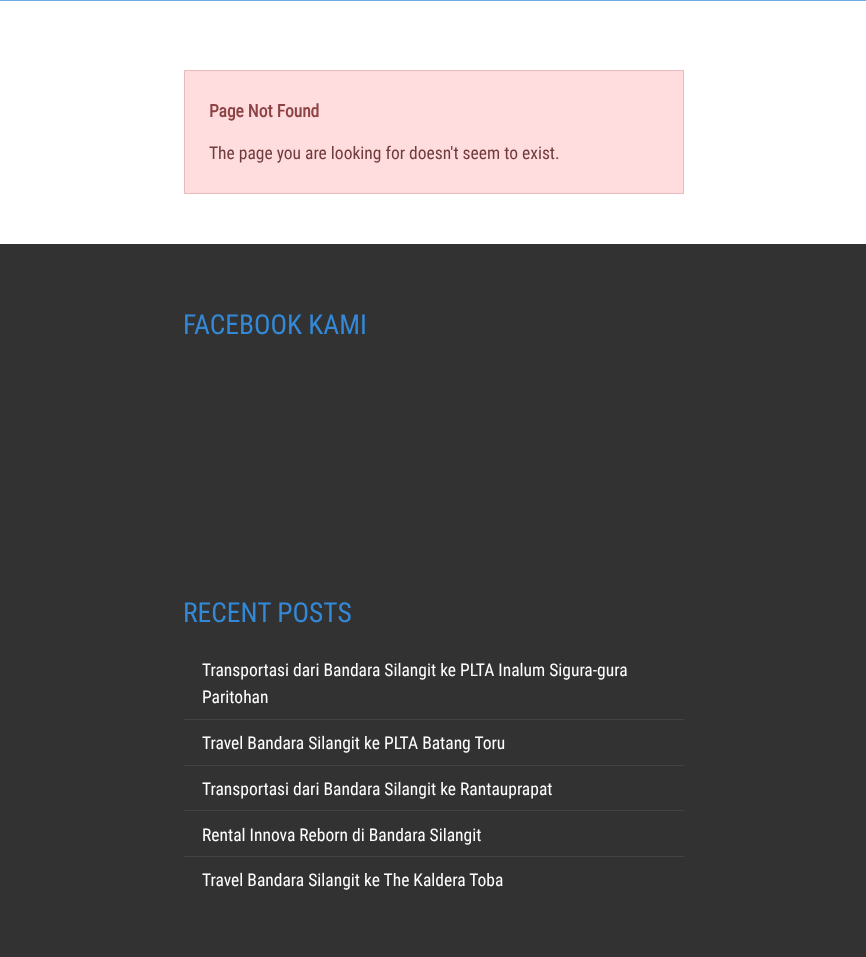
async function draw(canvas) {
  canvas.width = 866;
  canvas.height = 957;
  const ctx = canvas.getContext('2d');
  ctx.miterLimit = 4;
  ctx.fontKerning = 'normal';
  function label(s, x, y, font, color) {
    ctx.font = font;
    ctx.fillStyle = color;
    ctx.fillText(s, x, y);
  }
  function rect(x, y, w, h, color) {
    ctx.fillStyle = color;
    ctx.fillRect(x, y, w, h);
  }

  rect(0, 0, 866, 957, '#fff');
  rect(0, 0, 866, 1, '#70ace3');
  ctx.fillStyle = '#ffdcdd';
  ctx.beginPath();
  ctx.rect(184.5, 70.5, 499, 123);
  ctx.fill();
  ctx.strokeStyle = '#e9b9bb';
  ctx.stroke();
  label('Page Not Found', 209, 117, 'bold 17.5px Roboto Condensed', '#8d4345');
  label('The page you are looking for doesn\'t seem to exist.', 209, 159, '17.5px Roboto Condensed', '#713a3c');
  rect(0, 244, 866, 713, '#323232');
  label('FACEBOOK KAMI', 183, 334, '27.5px Roboto Condensed', '#3389d7');
  label('RECENT POSTS', 183, 622, '27.5px Roboto Condensed', '#3389d7');
  rect(184, 719, 500, 1, '#424242');
  label('Transportasi dari Bandara Silangit ke PLTA Inalum Sigura-gura', 202, 676, '17.5px Roboto Condensed', '#fff');
  label('Paritohan', 202, 703, '17.5px Roboto Condensed', '#fff');
  rect(184, 765, 500, 1, '#424242');
  label('Travel Bandara Silangit ke PLTA Batang Toru', 202, 749, '17.5px Roboto Condensed', '#fff');
  rect(184, 810, 500, 1, '#424242');
  label('Transportasi dari Bandara Silangit ke Rantauprapat', 202, 795, '17.5px Roboto Condensed', '#fff');
  rect(184, 856, 500, 1, '#424242');
  label('Rental Innova Reborn di Bandara Silangit', 202, 841, '17.5px Roboto Condensed', '#fff');
  label('Travel Bandara Silangit ke The Kaldera Toba', 202, 886, '17.5px Roboto Condensed', '#fff');
}

draw(document.querySelector('canvas'));
